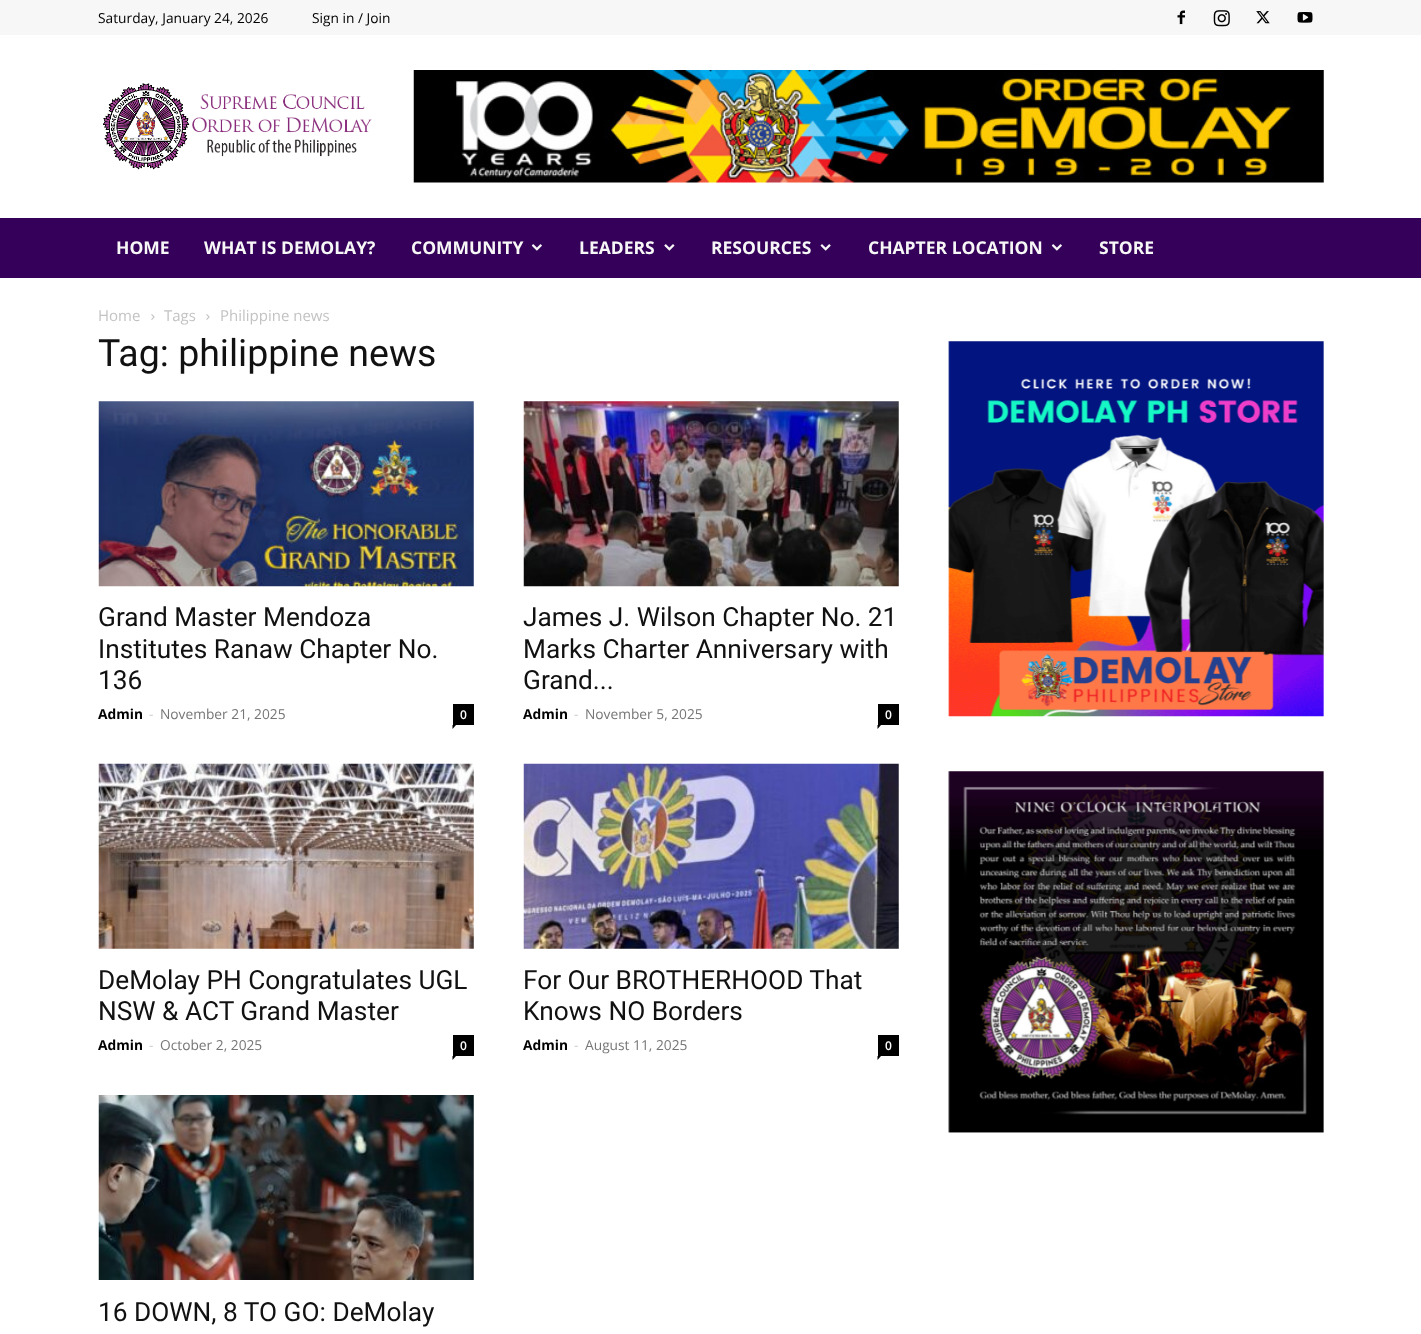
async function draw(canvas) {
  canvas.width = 1421;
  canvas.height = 1334;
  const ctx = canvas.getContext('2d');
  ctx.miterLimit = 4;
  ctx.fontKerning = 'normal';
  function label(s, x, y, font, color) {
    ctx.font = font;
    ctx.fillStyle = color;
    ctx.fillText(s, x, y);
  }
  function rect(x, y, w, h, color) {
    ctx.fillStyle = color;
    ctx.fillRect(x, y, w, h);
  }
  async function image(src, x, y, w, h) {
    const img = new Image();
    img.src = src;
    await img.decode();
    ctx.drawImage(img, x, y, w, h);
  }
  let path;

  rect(0, 0, 1421, 1334, '#fff');
  rect(0, 0, 1421, 35, '#f7f7f7');
  label('Saturday, January 24, 2026', 98, 23, '13.75px Open Sans', '#000');
  label('Sign in / Join', 312, 23, '13.75px Open Sans', '#000');
  await image('assets/img1.png', 1177, 10, 8, 15);
  await image('assets/img2.png', 1213, 10, 17, 17);
  await image('assets/img3.png', 1256, 11, 14, 13);
  await image('assets/img4.png', 1297, 12, 16, 11);
  await image('assets/img5.png', 103, 83, 269, 87);
  await image('assets/img6.png', 413, 70, 911, 113);
  rect(0, 218, 1421, 60, '#350059');
  label('HOME', 116, 254, 'bold 17.5px Open Sans', '#f7f7f7');
  label('WHAT IS DEMOLAY?', 204, 254, 'bold 17.5px Open Sans', '#f7f7f7');
  label('COMMUNITY', 411, 254, 'bold 17.5px Open Sans', '#f7f7f7');
  await image('assets/img7.png', 531, 244, 11, 7);
  label('LEADERS', 579, 254, 'bold 17.5px Open Sans', '#f7f7f7');
  await image('assets/img8.png', 664, 244, 11, 7);
  label('RESOURCES', 711, 254, 'bold 17.5px Open Sans', '#f7f7f7');
  await image('assets/img9.png', 820, 244, 11, 7);
  label('CHAPTER LOCATION', 868, 254, 'bold 17.5px Open Sans', '#f7f7f7');
  await image('assets/img7.png', 1051, 244, 11, 7);
  label('STORE', 1099, 254, 'bold 17.5px Open Sans', '#f7f7f7');
  label('Home', 98, 321, '15px Open Sans', '#c3c3c3');
  await image('assets/img10.png', 151, 314, 4, 6);
  label('Tags', 164, 321, '15px Open Sans', '#c3c3c3');
  await image('assets/img10.png', 206, 314, 4, 6);
  label('Philippine news', 220, 321, '15px Open Sans', '#c3c3c3');
  label('Tag: philippine news', 98, 366, '37.5px Roboto', '#111');
  await image('assets/img11.png', 98, 401, 376, 186);
  label('Grand Master Mendoza', 98, 626, '26.25px Roboto', '#111');
  label('Institutes Ranaw Chapter No.', 98, 658, '26.25px Roboto', '#111');
  label('136', 98, 689, '26.25px Roboto', '#111');
  label('Admin', 98, 719, 'bold 13.75px Open Sans', '#000');
  label('-', 149, 719, '13.75px Open Sans', '#ccc');
  label('November 21, 2025', 160, 719, '13.75px Open Sans', '#767676');
  rect(453, 704, 21, 21, '#000');
  label('0', 460, 719, '600 12px Open Sans', '#fff');
  ctx.fillStyle = '#000';
  path = new Path2D('M452.5 725H456L452.5 729Z');
  ctx.fill(path);
  await image('assets/img12.png', 523, 401, 376, 186);
  label('James J. Wilson Chapter No. 21', 523, 626, '26.25px Roboto', '#111');
  label('Marks Charter Anniversary with', 523, 658, '26.25px Roboto', '#111');
  label('Grand...', 523, 689, '26.25px Roboto', '#111');
  label('Admin', 523, 719, 'bold 13.75px Open Sans', '#000');
  label('-', 574, 719, '13.75px Open Sans', '#ccc');
  label('November 5, 2025', 585, 719, '13.75px Open Sans', '#767676');
  rect(878, 704, 21, 21, '#000');
  label('0', 885, 719, '600 12px Open Sans', '#fff');
  ctx.fillStyle = '#000';
  path = new Path2D('M877.5 725H881L877.5 729Z');
  ctx.fill(path);
  await image('assets/img13.png', 98, 763, 376, 186);
  label('DeMolay PH Congratulates UGL', 98, 989, '26.25px Roboto', '#111');
  label('NSW & ACT Grand Master', 98, 1020, '26.25px Roboto', '#111');
  label('Admin', 98, 1050, 'bold 13.75px Open Sans', '#000');
  label('-', 149, 1050, '13.75px Open Sans', '#ccc');
  label('October 2, 2025', 160, 1050, '13.75px Open Sans', '#767676');
  rect(453, 1035, 21, 21, '#000');
  label('0', 460, 1050, '600 12px Open Sans', '#fff');
  ctx.fillStyle = '#000';
  path = new Path2D('M452.5 1056H456L452.5 1060Z');
  ctx.fill(path);
  await image('assets/img14.png', 523, 763, 376, 186);
  label('For Our BROTHERHOOD That', 523, 989, '26.25px Roboto', '#111');
  label('Knows NO Borders', 523, 1020, '26.25px Roboto', '#111');
  label('Admin', 523, 1050, 'bold 13.75px Open Sans', '#000');
  label('-', 574, 1050, '13.75px Open Sans', '#ccc');
  label('August 11, 2025', 585, 1050, '13.75px Open Sans', '#767676');
  rect(878, 1035, 21, 21, '#000');
  label('0', 885, 1050, '600 12px Open Sans', '#fff');
  ctx.fillStyle = '#000';
  path = new Path2D('M877.5 1056H881L877.5 1060Z');
  ctx.fill(path);
  await image('assets/img15.png', 98, 1095, 376, 185);
  label('16 DOWN, 8 TO GO: DeMolay', 98, 1321, '26.25px Roboto', '#111');
  await image('assets/img16.png', 948, 341, 376, 376);
  await image('assets/img17.png', 948, 771, 376, 362);
}

draw(document.querySelector('canvas'));
